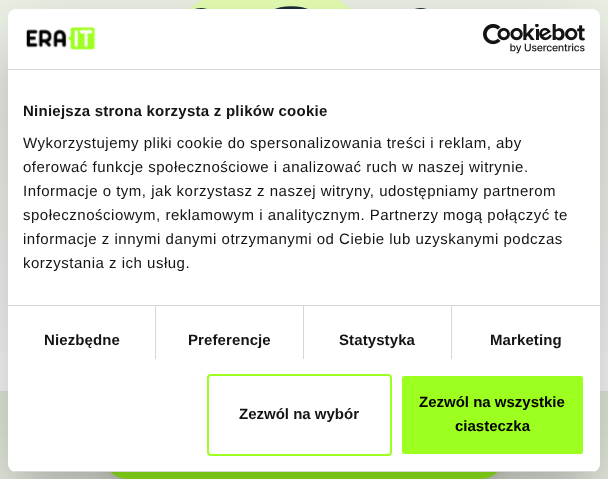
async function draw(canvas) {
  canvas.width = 608;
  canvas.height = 479;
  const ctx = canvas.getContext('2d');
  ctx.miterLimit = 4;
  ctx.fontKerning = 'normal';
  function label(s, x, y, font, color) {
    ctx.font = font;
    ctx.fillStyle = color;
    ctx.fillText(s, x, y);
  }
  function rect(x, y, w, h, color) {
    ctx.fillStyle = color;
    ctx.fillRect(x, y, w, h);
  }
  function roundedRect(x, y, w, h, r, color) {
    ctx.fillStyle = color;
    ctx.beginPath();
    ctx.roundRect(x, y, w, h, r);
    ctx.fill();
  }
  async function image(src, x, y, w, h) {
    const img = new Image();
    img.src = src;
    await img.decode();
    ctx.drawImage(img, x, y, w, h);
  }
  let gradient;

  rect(0, 0, 608, 479, '#fff');
  gradient = ctx.createLinearGradient(304, -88, 304, 391);
  gradient.addColorStop(0, '#e8eee0');
  gradient.addColorStop(1, '#fff');
  ctx.fillStyle = gradient;
  ctx.fillRect(0, 0, 608, 352);
  gradient = ctx.createLinearGradient(304, 391, 304, 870);
  gradient.addColorStop(0, '#e8eee0');
  gradient.addColorStop(1, '#fff');
  ctx.fillStyle = gradient;
  ctx.fillRect(0, 391, 608, 88);
  await image('assets/img1.png', 189, 0, 237, 9);
  ctx.fillStyle = '#00000033';
  ctx.filter = 'blur(10px)';
  ctx.beginPath();
  ctx.roundRect(109, 443, 390, 36, 18);
  ctx.fill();
  ctx.filter = 'none';
  roundedRect(104, 433, 400, 46, 23, '#9dff20');
  ctx.fillStyle = '#0000004d';
  ctx.filter = 'blur(34px)';
  ctx.beginPath();
  ctx.roundRect(8, 41, 592, 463, 8);
  ctx.fill();
  ctx.filter = 'none';
  roundedRect(8, 9, 592, 463, 8, '#fff');
  rect(8, 69, 592, 1, '#d6d6d6');
  await image('assets/img2.png', 26, 26, 70, 24);
  await image('assets/img3.png', 483, 24, 102, 30);
  rect(8, 305, 592, 1, '#d6d6d6');
  ctx.letterSpacing = '0.25px';
  label('Niniejsza strona korzysta z plików cookie', 23, 116, 'bold 15px Liberation Sans', '#141414');
  ctx.letterSpacing = '0.5px';
  label('Wykorzystujemy pliki cookie do spersonalizowania treści i reklam, aby', 23, 148, '15px Liberation Sans', '#141414');
  label('oferować funkcje społecznościowe i analizować ruch w naszej witrynie.', 23, 172, '15px Liberation Sans', '#141414');
  label('Informacje o tym, jak korzystasz z naszej witryny, udostępniamy partnerom', 23, 196, '15px Liberation Sans', '#141414');
  label('społecznościowym, reklamowym i analitycznym. Partnerzy mogą połączyć te', 23, 220, '15px Liberation Sans', '#141414');
  label('informacje z innymi danymi otrzymanymi od Ciebie lub uzyskanymi podczas', 23, 244, '15px Liberation Sans', '#141414');
  label('korzystania z ich usług.', 23, 268, '15px Liberation Sans', '#141414');
  rect(155, 306, 1, 53, '#d6d6d6');
  ctx.letterSpacing = '0.1px';
  label('Niezbędne', 44, 345, 'bold 15px Liberation Sans', '#141414');
  rect(303, 306, 1, 53, '#d6d6d6');
  label('Preferencje', 188, 345, 'bold 15px Liberation Sans', '#141414');
  rect(451, 306, 1, 53, '#d6d6d6');
  label('Statystyka', 339, 345, 'bold 15px Liberation Sans', '#141414');
  label('Marketing', 490, 345, 'bold 15px Liberation Sans', '#141414');
  ctx.save();
  ctx.beginPath();
  ctx.roundRect(8, 9, 592, 463, 8);
  ctx.clip();
  rect(8, 471, 592, 1, '#d6d6d6');
  ctx.restore();
  ctx.beginPath();
  ctx.roundRect(208, 375, 183, 80, 3);
  ctx.strokeStyle = '#9dff20';
  ctx.lineWidth = 2;
  ctx.stroke();
  ctx.letterSpacing = '0px';
  label('Zezwól na wybór', 239, 419, 'bold 15px Liberation Sans', '#141414');
  ctx.fillStyle = '#9dff20';
  ctx.beginPath();
  ctx.roundRect(401, 375, 183, 80, 3);
  ctx.fill();
  ctx.strokeStyle = '#fff';
  ctx.stroke();
  label('Zezwól na wszystkie', 419, 407, 'bold 15px Liberation Sans', '#000');
  label('ciasteczka', 455, 431, 'bold 15px Liberation Sans', '#000');
}

draw(document.querySelector('canvas'));
